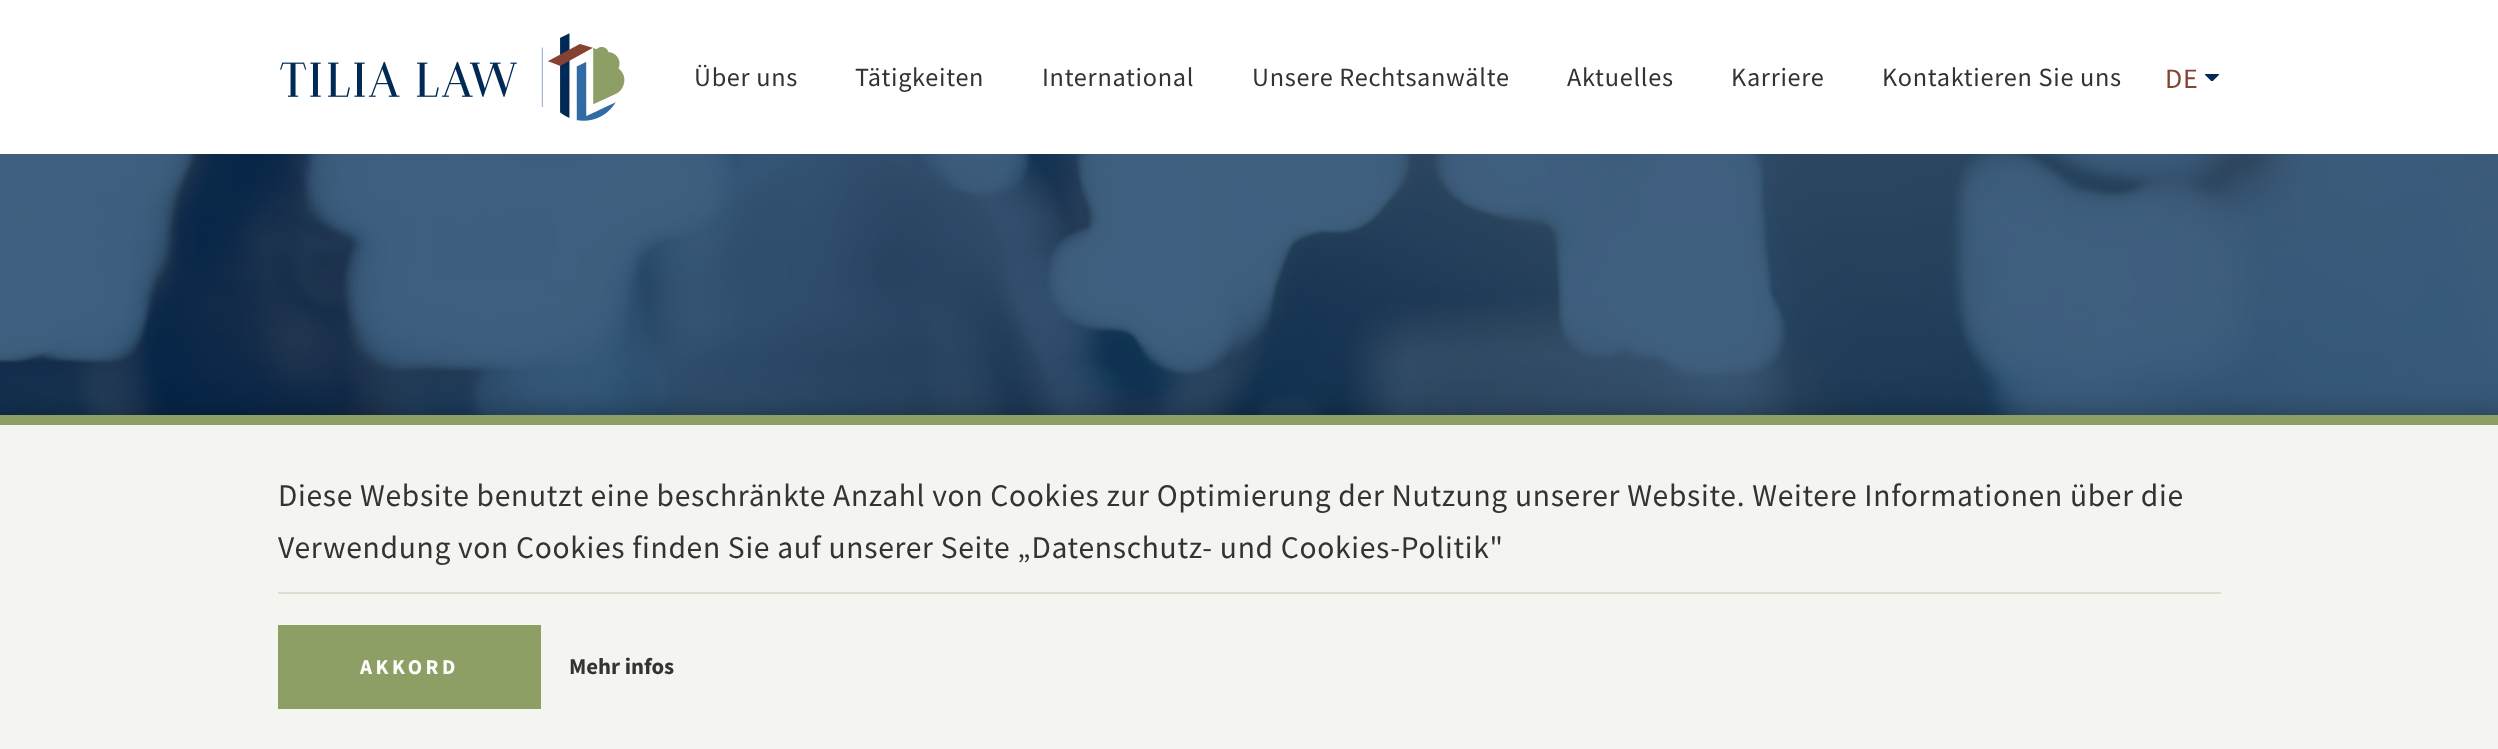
async function draw(canvas) {
  canvas.width = 2498;
  canvas.height = 749;
  const ctx = canvas.getContext('2d');
  ctx.miterLimit = 4;
  ctx.fontKerning = 'normal';
  function label(s, x, y, font, color) {
    ctx.font = font;
    ctx.fillStyle = color;
    ctx.fillText(s, x, y);
  }
  function rect(x, y, w, h, color) {
    ctx.fillStyle = color;
    ctx.fillRect(x, y, w, h);
  }
  async function image(src, x, y, w, h) {
    const img = new Image();
    img.src = src;
    await img.decode();
    ctx.drawImage(img, x, y, w, h);
  }

  rect(0, 0, 2498, 749, '#fff');
  await image('assets/img1.png', 280, 47, 263, 60);
  await image('assets/img2.png', 548, 33, 77, 88);
  ctx.letterSpacing = '0.7px';
  label('Über uns', 694, 86, '26.25px Source Sans Pro', '#333');
  label('Tätigkeiten', 855, 86, '26.25px Source Sans Pro', '#333');
  label('International', 1042, 86, '26.25px Source Sans Pro', '#333');
  label('Unsere Rechtsanwälte', 1252, 86, '26.25px Source Sans Pro', '#333');
  label('Aktuelles', 1567, 86, '26.25px Source Sans Pro', '#333');
  label('Karriere', 1731, 86, '26.25px Source Sans Pro', '#333');
  label('Kontaktieren Sie uns', 1882, 86, '26.25px Source Sans Pro', '#333');
  await image('assets/img3.png', 2205, 74, 14, 7);
  label('DE', 2165, 88, '28px Source Sans Pro', '#854132');
  await image('assets/img4.png', 0, 154, 2498, 261);
  ctx.fillStyle = '#00000080';
  ctx.filter = 'blur(17.5px)';
  ctx.beginPath();
  ctx.rect(-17, 422, 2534, 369);
  ctx.fill();
  ctx.filter = 'none';
  rect(0, 425, 2498, 324, '#f4f5f0');
  rect(0, 415, 2498, 10, '#8d9f65');
  label('Diese Website benutzt eine beschränkte Anzahl von Cookies zur Optimierung der Nutzung unserer Website. Weitere Informationen über die', 278, 506, '31.5px Source Sans Pro', '#333');
  label('Verwendung von Cookies finden Sie auf unserer Seite „Datenschutz- und Cookies-Politik"', 278, 558, '31.5px Source Sans Pro', '#333');
  rect(278, 592, 1943, 2, '#dae0cd');
  rect(278, 625, 263, 84, '#8d9f65');
  ctx.letterSpacing = '3.5px';
  label('AKKORD', 360, 674, 'bold 21px Source Sans Pro', '#fff');
  ctx.letterSpacing = '0px';
  label('Mehr infos', 569, 674, 'bold 22.75px Source Sans Pro', '#333');
}

draw(document.querySelector('canvas'));
